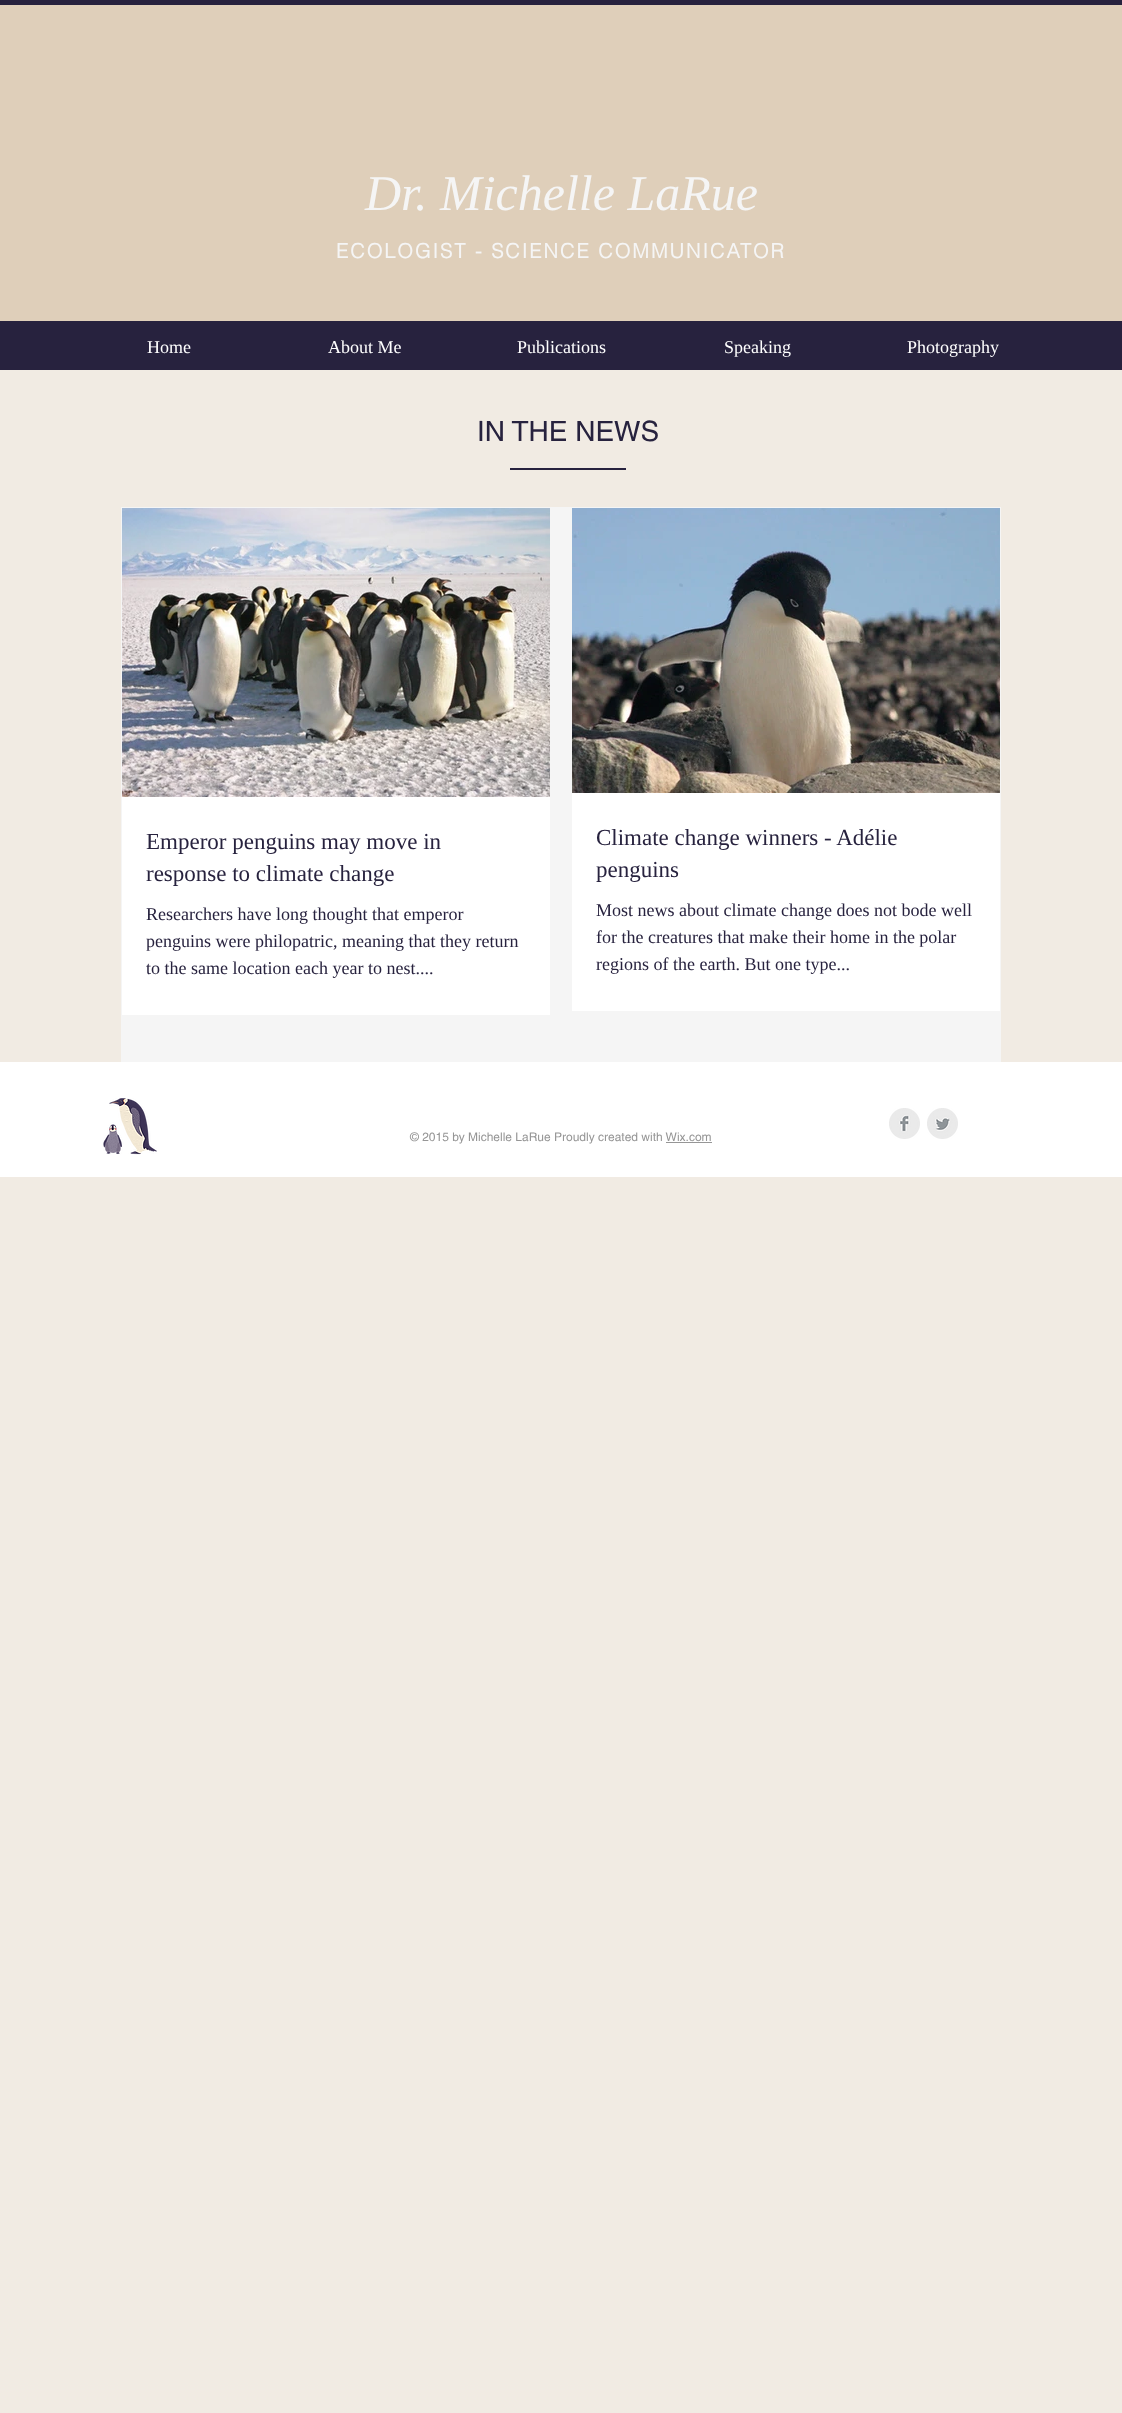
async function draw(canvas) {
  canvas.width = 1122;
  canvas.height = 2413;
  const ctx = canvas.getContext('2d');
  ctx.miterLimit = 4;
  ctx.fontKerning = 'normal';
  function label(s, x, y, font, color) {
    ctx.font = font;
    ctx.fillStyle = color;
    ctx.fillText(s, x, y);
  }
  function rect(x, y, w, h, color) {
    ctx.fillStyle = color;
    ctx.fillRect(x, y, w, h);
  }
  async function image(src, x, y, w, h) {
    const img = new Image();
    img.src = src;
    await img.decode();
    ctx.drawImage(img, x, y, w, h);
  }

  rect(0, 0, 1122, 2413, '#f1ebe3');
  rect(0, 0, 1122, 370, '#27223e');
  rect(0, 5, 1122, 316, '#dfcfba');
  label('Dr. Michelle LaRue', 365, 210, 'italic 50px Liberation Serif', '#f5f5f5');
  ctx.letterSpacing = '2px';
  label('ECOLOGIST - SCIENCE COMMUNICATOR', 336, 258, 'bold 20px helvetica', '#f5f5f5');
  ctx.letterSpacing = '0px';
  label('Home', 147, 353, '18px Liberation Serif', '#fff');
  label('About Me', 328, 353, '18px Liberation Serif', '#fff');
  label('Publications', 517, 353, '18px Liberation Serif', '#fff');
  label('Speaking', 724, 353, '18px Liberation Serif', '#fff');
  label('Photography', 907, 353, '18px Liberation Serif', '#fff');
  label('IN THE NEWS', 477, 441, '28px helvetica', '#27223e');
  rect(510, 468, 116, 2, '#27223e');
  rect(121, 507, 880, 555, '#f5f5f5');
  await image('assets/img1.png', 122, 508, 428, 289);
  rect(122, 797, 428, 218, '#fff');
  label('Emperor penguins may move in', 146, 849, '23px Liberation Serif', '#27223e');
  label('response to climate change', 146, 881, '23px Liberation Serif', '#27223e');
  label('Researchers have long thought that emperor', 146, 920, '18px Liberation Serif', '#27223e');
  label('penguins were philopatric, meaning that they return', 146, 947, '18px Liberation Serif', '#27223e');
  label('to the same location each year to nest....', 146, 974, '18px Liberation Serif', '#27223e');
  await image('assets/img2.png', 572, 508, 428, 285);
  rect(572, 793, 428, 218, '#fff');
  label('Climate change winners - Adélie', 596, 845, '23px Liberation Serif', '#27223e');
  label('penguins', 596, 877, '23px Liberation Serif', '#27223e');
  label('Most news about climate change does not bode well', 596, 916, '18px Liberation Serif', '#27223e');
  label('for the creatures that make their home in the polar', 596, 943, '18px Liberation Serif', '#27223e');
  label('regions of the earth. But one type...', 596, 970, '18px Liberation Serif', '#27223e');
  rect(0, 1062, 1122, 115, '#fff');
  await image('assets/img3.png', 103, 1098, 54, 57);
  label('© 2015 by Michelle LaRue Proudly created with Wix.com', 410, 1141, '12px helvetica', '#969696');
  rect(666, 1142, 46, 1, '#969696');
  await image('assets/img4.png', 889, 1108, 31, 31);
  await image('assets/img5.png', 927, 1108, 31, 31);
}

draw(document.querySelector('canvas'));
